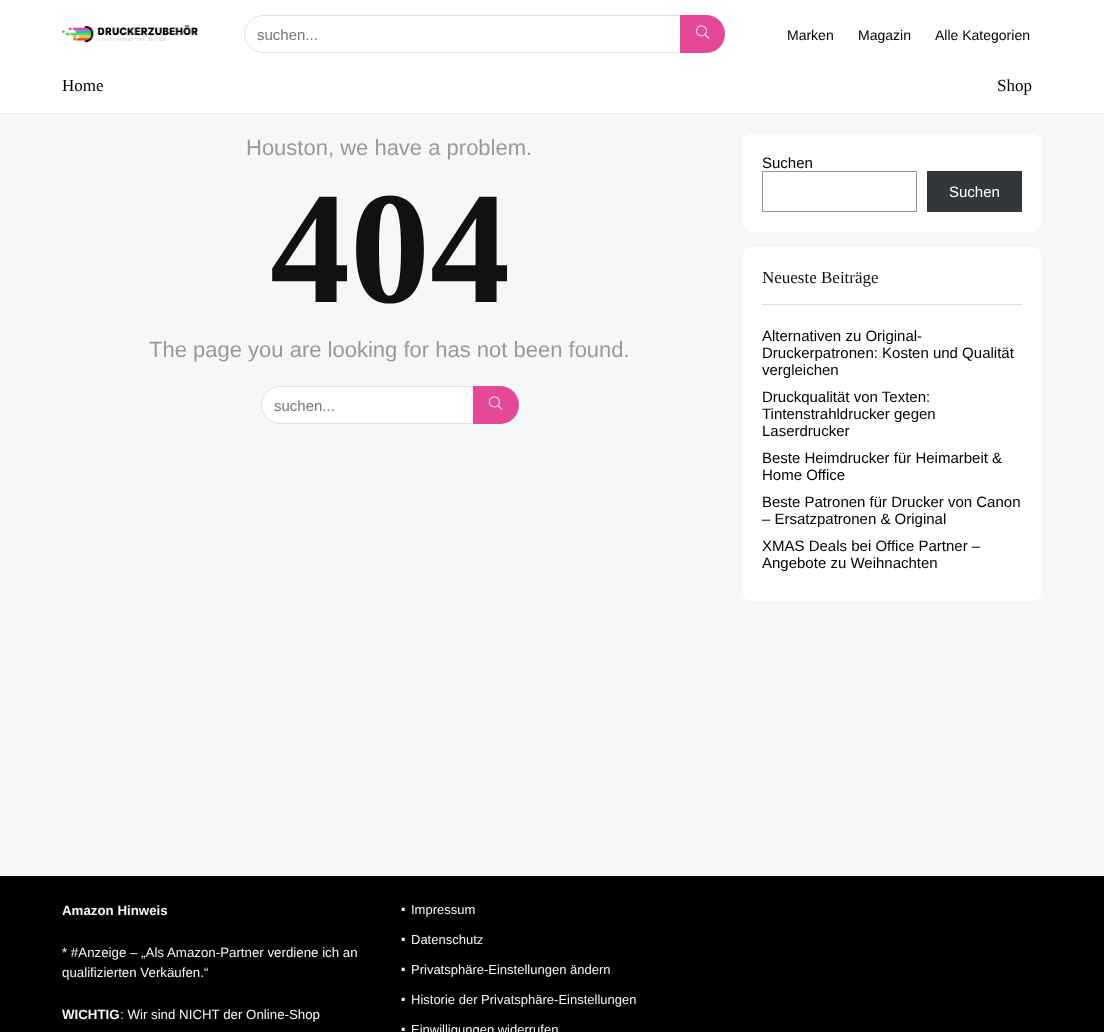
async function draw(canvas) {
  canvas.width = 1104;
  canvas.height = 1032;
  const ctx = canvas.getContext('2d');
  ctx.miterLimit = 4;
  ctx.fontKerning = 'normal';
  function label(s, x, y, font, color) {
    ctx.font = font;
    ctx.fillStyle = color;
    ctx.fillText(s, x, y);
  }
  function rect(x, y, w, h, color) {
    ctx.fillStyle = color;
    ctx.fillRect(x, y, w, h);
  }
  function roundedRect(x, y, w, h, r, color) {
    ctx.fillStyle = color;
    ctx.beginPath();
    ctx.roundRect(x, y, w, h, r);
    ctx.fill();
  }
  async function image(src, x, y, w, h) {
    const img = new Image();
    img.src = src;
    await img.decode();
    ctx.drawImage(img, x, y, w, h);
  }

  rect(0, 0, 1104, 1032, '#f6f7f9');
  rect(0, 0, 1104, 113, '#fff');
  await image('assets/img1.png', 62, 25, 136, 18);
  ctx.beginPath();
  ctx.roundRect(244.5, 15.5, 480, 37, 18.5);
  ctx.strokeStyle = '#e1e1e1';
  ctx.stroke();
  label('suchen...', 257, 40, '15px Liberation Sans', '#757575');
  ctx.fillStyle = '#e54896';
  ctx.beginPath();
  ctx.roundRect(680, 15, 45, 38, [0, 19, 19, 0]);
  ctx.fill();
  await image('assets/img2.png', 696, 25, 14, 14);
  label('Marken', 787, 40, '14px Liberation Sans', '#000');
  label('Magazin', 858, 40, '14px Liberation Sans', '#000');
  label('Alle Kategorien', 935, 40, '14px Liberation Sans', '#000');
  rect(0, 113, 1104, 1, '#eee');
  label('Home', 62, 91, '17px Liberation Serif', '#000');
  label('Shop', 997, 91, '17px Liberation Serif', '#000');
  label('Houston, we have a problem.', 246, 155, '22px Liberation Sans', '#999');
  label('404', 270, 302, 'bold 160px Liberation Serif', '#111');
  label('The page you are looking for has not been found.', 149, 357, '22px Liberation Sans', '#999');
  ctx.fillStyle = '#fff';
  ctx.beginPath();
  ctx.roundRect(261.5, 386.5, 257, 37, 18.5);
  ctx.fill();
  ctx.stroke();
  label('suchen...', 274, 411, '15px Liberation Sans', '#757575');
  ctx.fillStyle = '#e54896';
  ctx.beginPath();
  ctx.roundRect(473, 386, 46, 38, [0, 19, 19, 0]);
  ctx.fill();
  await image('assets/img2.png', 489, 396, 14, 14);
  roundedRect(742, 134, 300, 98, 10, '#fff');
  label('Suchen', 762, 168, '15px Liberation Sans', '#000');
  ctx.strokeStyle = '#949494';
  ctx.strokeRect(762.5, 171.5, 154, 40);
  rect(927, 171, 95, 41, '#32373c');
  label('Suchen', 949, 197, '15px Liberation Sans', '#fff');
  roundedRect(742, 247, 300, 354, 10, '#fff');
  rect(762, 304, 260, 1, '#ddd');
  label('Neueste Beiträge', 762, 283, '17px Liberation Serif', '#111');
  label('Alternativen zu Original-', 762, 341, '15px Liberation Sans', '#000');
  label('Druckerpatronen: Kosten und Qualität', 762, 358, '15px Liberation Sans', '#000');
  label('vergleichen', 762, 375, '15px Liberation Sans', '#000');
  label('Druckqualität von Texten:', 762, 402, '15px Liberation Sans', '#000');
  label('Tintenstrahldrucker gegen', 762, 419, '15px Liberation Sans', '#000');
  label('Laserdrucker', 762, 436, '15px Liberation Sans', '#000');
  label('Beste Heimdrucker für Heimarbeit &', 762, 463, '15px Liberation Sans', '#000');
  label('Home Office', 762, 480, '15px Liberation Sans', '#000');
  label('Beste Patronen für Drucker von Canon', 762, 507, '15px Liberation Sans', '#000');
  label('– Ersatzpatronen & Original', 762, 524, '15px Liberation Sans', '#000');
  label('XMAS Deals bei Office Partner –', 762, 551, '15px Liberation Sans', '#000');
  label('Angebote zu Weihnachten', 762, 568, '15px Liberation Sans', '#000');
  rect(0, 876, 1104, 156, '#000');
  label('Amazon Hinweis', 62, 915, 'bold 13.3px Liberation Sans', '#f5f5f5');
  label('* #Anzeige – „Als Amazon-Partner verdiene ich an', 62, 957, '13.3px Liberation Sans', '#f5f5f5');
  label('qualifizierten Verkäufen.“', 62, 977, '13.3px Liberation Sans', '#f5f5f5');
  label('WICHTIG', 62, 1019, 'bold 13.3px Liberation Sans', '#f5f5f5');
  label(': Wir sind NICHT der Online-Shop', 120, 1019, '13.3px Liberation Sans', '#f5f5f5');
  label('.', 399, 911, '30px Liberation Sans', '#fff');
  label('Impressum', 411, 914, '13px Liberation Sans', '#f5f5f5');
  label('.', 399, 941, '30px Liberation Sans', '#fff');
  label('Datenschutz', 411, 944, '13px Liberation Sans', '#f5f5f5');
  label('.', 399, 971, '30px Liberation Sans', '#fff');
  label('Privatsphäre-Einstellungen ändern', 411, 974, '13px Liberation Sans', '#f5f5f5');
  label('.', 399, 1001, '30px Liberation Sans', '#fff');
  label('Historie der Privatsphäre-Einstellungen', 411, 1004, '13px Liberation Sans', '#f5f5f5');
  label('.', 399, 1031, '30px Liberation Sans', '#fff');
  label('Einwilligungen widerrufen', 411, 1034, '13px Liberation Sans', '#f5f5f5');
}

draw(document.querySelector('canvas'));
